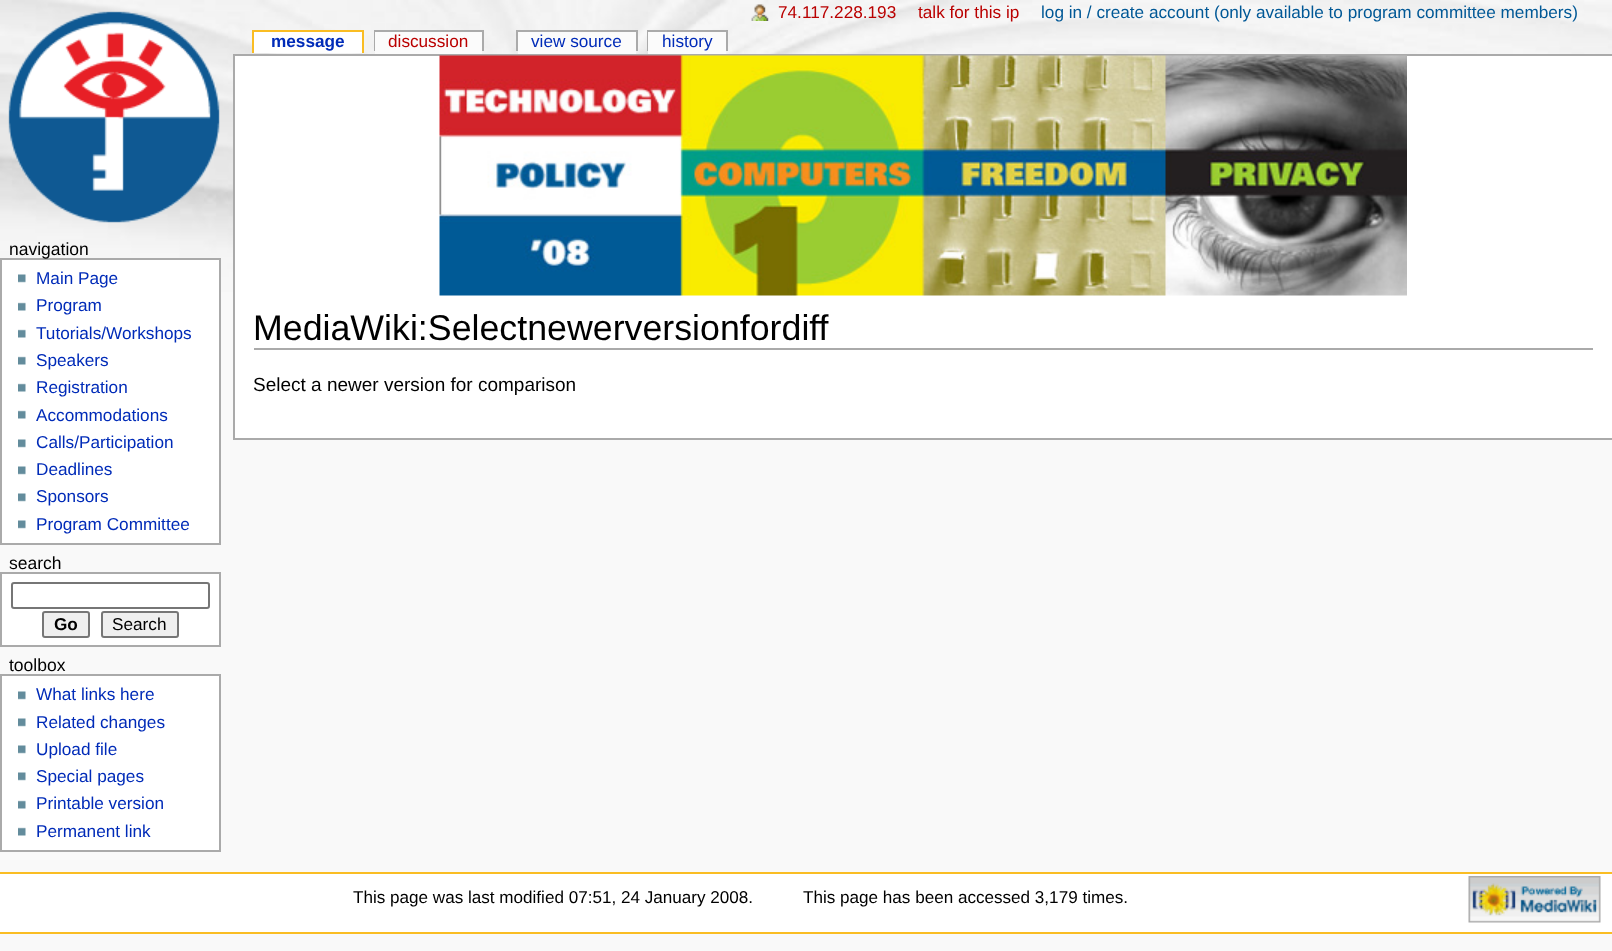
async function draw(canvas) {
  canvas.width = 1612;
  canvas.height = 951;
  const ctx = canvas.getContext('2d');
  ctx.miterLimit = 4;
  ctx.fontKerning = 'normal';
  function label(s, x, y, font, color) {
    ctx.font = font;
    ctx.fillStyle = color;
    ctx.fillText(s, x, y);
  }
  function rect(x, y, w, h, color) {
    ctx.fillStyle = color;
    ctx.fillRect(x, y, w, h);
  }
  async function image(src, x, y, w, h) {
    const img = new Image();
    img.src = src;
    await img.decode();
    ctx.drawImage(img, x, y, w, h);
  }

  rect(0, 0, 1612, 951, '#f9f9f9');
  await image('assets/img1.png', 0, 0, 1612, 292);
  await image('assets/img2.png', 8, 11, 212, 212);
  rect(254, 32, 108, 21, '#fff');
  label('message', 271, 47, 'bold 17.2px Liberation Sans', '#002bb8');
  rect(252, 30, 111, 2, '#fabd23');
  rect(362, 30, 2, 23, '#fabd23');
  rect(252, 30, 2, 23, '#fabd23');
  rect(374, 30, 109, 2, '#aaa');
  rect(374, 30, 2, 21, '#aaa');
  rect(375, 32, 107, 22, '#fbfbfb');
  label('discussion', 388, 47, '17.2px Liberation Sans', '#ba0000');
  rect(482, 30, 2, 21, '#aaa');
  rect(518, 32, 118, 22, '#fbfbfb');
  label('view source', 531, 47, '17.2px Liberation Sans', '#002bb8');
  rect(516, 30, 122, 2, '#aaa');
  rect(636, 30, 2, 21, '#aaa');
  rect(516, 30, 2, 21, '#aaa');
  rect(647, 30, 81, 2, '#aaa');
  rect(647, 30, 2, 21, '#aaa');
  rect(648, 32, 78, 22, '#fbfbfb');
  label('history', 662, 47, '17.2px Liberation Sans', '#002bb8');
  rect(726, 30, 2, 21, '#aaa');
  await image('assets/img3.png', 751, 4, 18, 17);
  label('74.117.228.193', 778, 18, '17.2px Liberation Sans', '#ba0000');
  label('talk for this ip', 918, 18, '17.2px Liberation Sans', '#ba0000');
  label('log in / create account (only available to program committee members)', 1041, 18, '17.2px Liberation Sans', '#005896');
  ctx.fillStyle = '#fff';
  ctx.beginPath();
  ctx.rect(1, 259, 219, 285);
  ctx.fill();
  ctx.strokeStyle = '#aaa';
  ctx.lineWidth = 2;
  ctx.stroke();
  label('navigation', 9, 255, '17.5px Liberation Sans', '#000');
  await image('assets/img4.png', 18, 274, 8, 9);
  label('Main Page', 36, 284, '17.2px Liberation Sans', '#002bb8');
  await image('assets/img5.png', 18, 302, 8, 9);
  label('Program', 36, 311, '17.2px Liberation Sans', '#002bb8');
  await image('assets/img5.png', 18, 329, 8, 9);
  label('Tutorials/Workshops', 36, 339, '17.2px Liberation Sans', '#002bb8');
  await image('assets/img5.png', 18, 356, 8, 9);
  label('Speakers', 36, 366, '17.2px Liberation Sans', '#002bb8');
  await image('assets/img5.png', 18, 383, 8, 9);
  label('Registration', 36, 393, '17.2px Liberation Sans', '#002bb8');
  await image('assets/img5.png', 18, 410, 8, 9);
  label('Accommodations', 36, 421, '17.2px Liberation Sans', '#002bb8');
  await image('assets/img4.png', 18, 439, 8, 9);
  label('Calls/Participation', 36, 448, '17.2px Liberation Sans', '#002bb8');
  await image('assets/img4.png', 18, 466, 8, 9);
  label('Deadlines', 36, 475, '17.2px Liberation Sans', '#002bb8');
  await image('assets/img4.png', 18, 493, 8, 9);
  label('Sponsors', 36, 502, '17.2px Liberation Sans', '#002bb8');
  await image('assets/img4.png', 18, 520, 8, 9);
  label('Program Committee', 36, 530, '17.2px Liberation Sans', '#002bb8');
  label('search', 9, 569, '17.5px Liberation Sans', '#000');
  ctx.fillStyle = '#fff';
  ctx.beginPath();
  ctx.rect(1, 573, 219, 73);
  ctx.fill();
  ctx.stroke();
  ctx.beginPath();
  ctx.roundRect(12, 583, 197, 25, 2);
  ctx.strokeStyle = '#767676';
  ctx.stroke();
  ctx.fillStyle = '#efefef';
  ctx.beginPath();
  ctx.roundRect(43, 612, 46, 25, 2);
  ctx.fill();
  ctx.stroke();
  label('Go', 54, 630, 'bold 17.2px Liberation Sans', '#000');
  ctx.fillStyle = '#efefef';
  ctx.beginPath();
  ctx.roundRect(102, 612, 76, 25, 2);
  ctx.fill();
  ctx.stroke();
  label('Search', 112, 630, '17.2px Liberation Sans', '#000');
  label('toolbox', 9, 671, '17.5px Liberation Sans', '#000');
  ctx.fillStyle = '#fff';
  ctx.beginPath();
  ctx.rect(1, 675, 219, 176);
  ctx.fill();
  ctx.strokeStyle = '#aaa';
  ctx.stroke();
  await image('assets/img4.png', 18, 691, 8, 9);
  label('What links here', 36, 700, '17.2px Liberation Sans', '#002bb8');
  await image('assets/img4.png', 18, 718, 8, 9);
  label('Related changes', 36, 728, '17.2px Liberation Sans', '#002bb8');
  await image('assets/img4.png', 18, 745, 8, 9);
  label('Upload file', 36, 755, '17.2px Liberation Sans', '#002bb8');
  await image('assets/img4.png', 18, 772, 8, 9);
  label('Special pages', 36, 782, '17.2px Liberation Sans', '#002bb8');
  await image('assets/img5.png', 18, 800, 8, 9);
  label('Printable version', 36, 809, '17.2px Liberation Sans', '#002bb8');
  await image('assets/img5.png', 18, 827, 8, 9);
  label('Permanent link', 36, 837, '17.2px Liberation Sans', '#002bb8');
  rect(235, 56, 1377, 382, '#fff');
  rect(233, 54, 1379, 2, '#aaa');
  rect(233, 438, 1379, 2, '#aaa');
  rect(233, 54, 2, 386, '#aaa');
  await image('assets/img6.png', 439, 55, 968, 241);
  rect(254, 348, 1339, 2, '#aaa');
  label('MediaWiki:Selectnewerversionfordiff', 253, 340, '35.75px Liberation Sans', '#000');
  label('Select a newer version for comparison', 253, 391, '19px Liberation Sans', '#000');
  rect(0, 874, 1612, 58, '#fff');
  rect(0, 872, 1612, 2, '#fabd23');
  rect(0, 932, 1612, 2, '#fabd23');
  label('This page was last modified 07:51, 24 January 2008.', 353, 903, '17.1px Liberation Sans', '#000');
  label('This page has been accessed 3,179 times.', 803, 903, '17.1px Liberation Sans', '#000');
  await image('assets/img7.png', 1468, 876, 133, 47);
}

draw(document.querySelector('canvas'));
